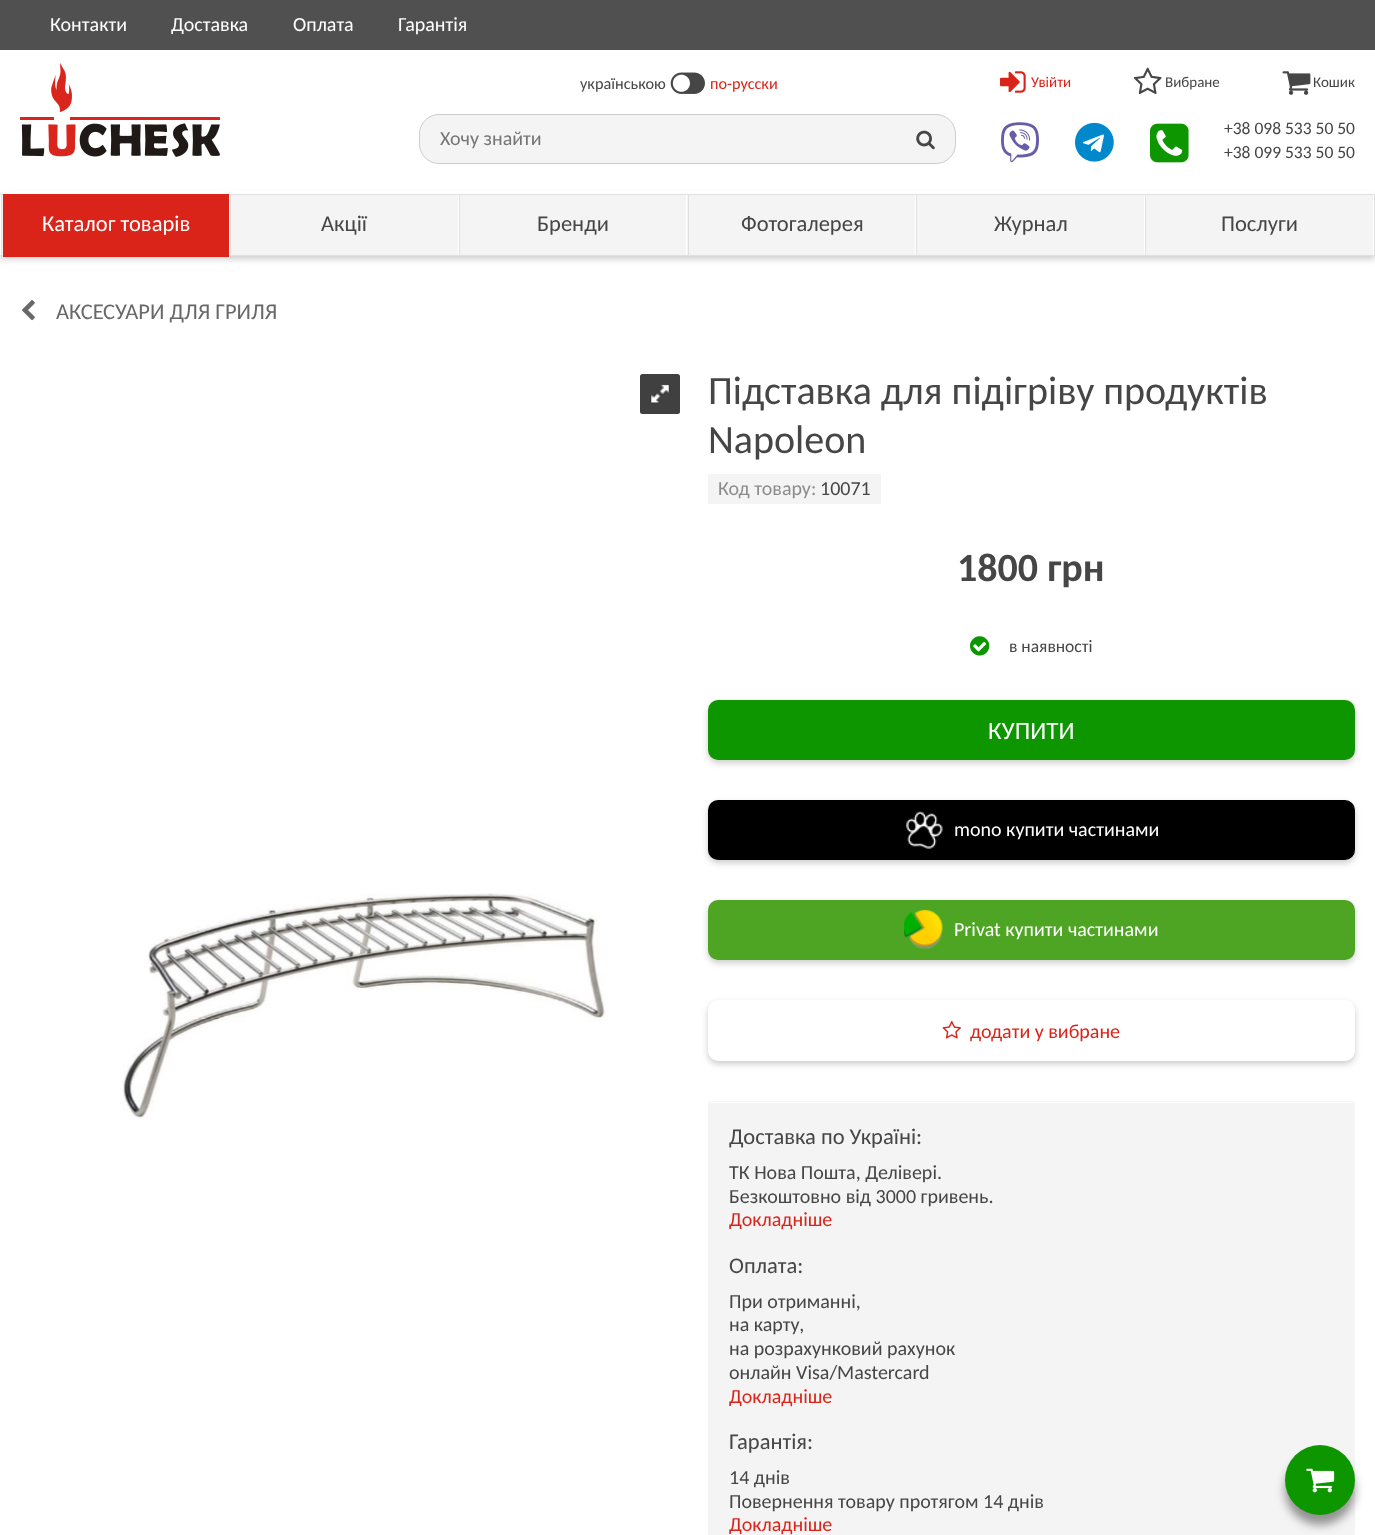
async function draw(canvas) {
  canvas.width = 1375;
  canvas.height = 1535;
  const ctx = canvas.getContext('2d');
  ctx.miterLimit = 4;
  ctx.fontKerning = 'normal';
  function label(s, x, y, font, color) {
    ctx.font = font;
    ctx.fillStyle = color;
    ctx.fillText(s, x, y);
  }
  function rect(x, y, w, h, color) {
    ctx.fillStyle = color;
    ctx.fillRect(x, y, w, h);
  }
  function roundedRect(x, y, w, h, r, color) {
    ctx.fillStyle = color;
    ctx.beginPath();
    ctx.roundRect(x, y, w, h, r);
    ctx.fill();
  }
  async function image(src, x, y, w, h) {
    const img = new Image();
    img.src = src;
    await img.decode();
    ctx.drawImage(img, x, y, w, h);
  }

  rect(0, 0, 1375, 1535, '#fff');
  rect(0, 0, 1375, 50, '#505050');
  label('Контакти', 50, 31, '20px Carlito', '#fff');
  label('Доставка', 171, 31, '20px Carlito', '#fff');
  label('Оплата', 293, 31, '20px Carlito', '#fff');
  label('Гарантія', 398, 31, '20px Carlito', '#fff');
  ctx.fillStyle = '#00000033';
  ctx.filter = 'blur(3px)';
  ctx.beginPath();
  ctx.rect(0, 196, 1375, 63);
  ctx.fill();
  ctx.filter = 'none';
  rect(0, 191, 1375, 3, '#fff');
  await image('assets/img1.png', 20, 63, 200, 94);
  label('українською', 580, 89, '16.25px Carlito', '#464646');
  await image('assets/img2.png', 670, 72, 35, 22);
  label('по-русски', 710, 89, '16.25px Carlito', '#da2419');
  ctx.fillStyle = '#f4f4f4';
  ctx.beginPath();
  ctx.roundRect(419.5, 114.5, 536, 49, 19.5);
  ctx.fill();
  ctx.strokeStyle = '#ccc';
  ctx.stroke();
  label('Хочу знайти', 440, 145, '20px Carlito', '#757575');
  await image('assets/img3.png', 916, 130, 19, 20);
  await image('assets/img4.png', 1000, 71, 26, 22);
  label('Увійти', 1031, 87, '15px Carlito', '#da2419');
  await image('assets/img5.png', 1133, 67, 29, 28);
  label('Вибране', 1165, 87, '15px Carlito', '#464646');
  await image('assets/img6.png', 1282, 71, 29, 24);
  label('Кошик', 1313, 87, '15px Carlito', '#464646');
  await image('assets/img7.png', 1001, 122, 38, 41);
  await image('assets/img8.png', 1075, 122, 39, 40);
  await image('assets/img9.png', 1150, 123, 39, 40);
  label('+38 098 533 50 50', 1224, 134, '17.5px Carlito', '#464646');
  label('+38 099 533 50 50', 1224, 158, '17.5px Carlito', '#464646');
  rect(2, 195, 1371, 60, '#f4f4f4');
  rect(0, 194, 1375, 1, '#e0e0e0');
  rect(0, 255, 1375, 1, '#e0e0e0');
  rect(1374, 195, 1, 60, '#e0e0e0');
  rect(0, 195, 1, 60, '#fff');
  rect(229, 195, 1, 60, '#fff');
  rect(1, 195, 1, 60, '#e0e0e0');
  rect(3, 194, 226, 63, '#da2419');
  label('Каталог товарів', 42, 231, '22.5px Carlito', '#fff');
  rect(458, 195, 1, 60, '#fff');
  rect(230, 195, 1, 60, '#e0e0e0');
  label('Акції', 321, 231, '22.5px Carlito', '#464646');
  rect(686, 195, 1, 60, '#fff');
  rect(459, 195, 1, 60, '#e0e0e0');
  label('Бренди', 537, 231, '22.5px Carlito', '#464646');
  rect(915, 195, 1, 60, '#fff');
  rect(688, 195, 1, 60, '#e0e0e0');
  label('Фотогалерея', 741, 231, '22.5px Carlito', '#464646');
  rect(1144, 195, 1, 60, '#fff');
  rect(916, 195, 1, 60, '#e0e0e0');
  label('Журнал', 994, 231, '22.5px Carlito', '#464646');
  rect(1373, 195, 1, 60, '#fff');
  rect(1145, 195, 1, 60, '#e0e0e0');
  label('Послуги', 1221, 231, '22.5px Carlito', '#464646');
  await image('assets/img10.png', 22, 300, 13, 21);
  label('АКСЕСУАРИ ДЛЯ ГРИЛЯ', 56, 319, '22.5px Carlito', '#686868');
  roundedRect(640, 374, 40, 40, 2.5, '#404040');
  await image('assets/img11.png', 650, 384, 20, 20);
  await image('assets/img12.png', 123, 893, 483, 226);
  label('Підставка для підігріву продуктів', 708, 404, '40px Carlito', '#464646');
  label('Napoleon', 708, 453, '40px Carlito', '#464646');
  rect(708, 474, 173, 30, '#f4f4f4');
  label('Код товару:', 718, 495, '20px Carlito', '#8c8c8c');
  label('10071', 820, 495, '20px Carlito', '#464646');
  label('1800 грн', 957, 581, 'bold 40px Carlito', '#464646');
  await image('assets/img13.png', 970, 636, 20, 20);
  label('в наявності', 1009, 652, '17.5px Carlito', '#464646');
  ctx.fillStyle = '#00000033';
  ctx.filter = 'blur(3px)';
  ctx.beginPath();
  ctx.roundRect(708, 703, 647, 60, 10);
  ctx.fill();
  ctx.filter = 'none';
  roundedRect(708, 700, 647, 60, 10, '#0e9600');
  label('КУПИТИ', 988, 739, '25px Carlito', '#fff');
  roundedRect(709, 1103, 645, 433, 1, '#f4f4f4');
  ctx.beginPath();
  ctx.roundRect(708.5, 1101.5, 646, 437, 2);
  ctx.strokeStyle = '#f4f4f4';
  ctx.stroke();
  ctx.fillStyle = '#00000066';
  ctx.filter = 'blur(5px)';
  ctx.beginPath();
  ctx.roundRect(1285, 1455, 70, 70, 35);
  ctx.fill();
  ctx.filter = 'none';
  ctx.fillStyle = '#0e9600';
  ctx.beginPath();
  ctx.arc(1320, 1480, 35, 0, 2 * Math.PI);
  ctx.fill();
  await image('assets/img14.png', 1306, 1468, 29, 25);
  ctx.fillStyle = '#00000033';
  ctx.filter = 'blur(3px)';
  ctx.beginPath();
  ctx.roundRect(708, 803, 647, 60, 10);
  ctx.fill();
  ctx.filter = 'none';
  roundedRect(708, 800, 647, 60, 10, '#000');
  await image('assets/img15.png', 906, 811, 37, 38);
  label('mono купити частинами', 954, 836, '20px Carlito', '#fff');
  ctx.fillStyle = '#00000033';
  ctx.filter = 'blur(3px)';
  ctx.beginPath();
  ctx.roundRect(708, 903, 647, 60, 10);
  ctx.fill();
  ctx.filter = 'none';
  roundedRect(708, 900, 647, 60, 10, '#4ea524');
  await image('assets/img16.png', 904, 910, 39, 39);
  label('Privat купити частинами', 954, 936, '20px Carlito', '#fff');
  ctx.fillStyle = '#00000033';
  ctx.filter = 'blur(3px)';
  ctx.beginPath();
  ctx.roundRect(708, 1003, 647, 61, 10);
  ctx.fill();
  ctx.filter = 'none';
  roundedRect(708, 1000, 647, 61, 10, '#fff');
  await image('assets/img17.png', 942, 1020, 19, 19);
  label('додати у вибране', 970, 1038, '20px Carlito', '#da2419');
  label('Доставка по Україні:', 729, 1144, '22.5px Carlito', '#464646');
  label('ТК Нова Пошта, Делівері.', 729, 1179, '20px Carlito', '#464646');
  label('Безкоштовно від 3000 гривень.', 729, 1203, '20px Carlito', '#464646');
  label('Докладніше', 729, 1226, '20px Carlito', '#da2419');
  label('Оплата:', 729, 1273, '22.5px Carlito', '#464646');
  label('При отриманні,', 729, 1308, '20px Carlito', '#464646');
  label('на карту,', 729, 1331, '20px Carlito', '#464646');
  label('на розрахунковий рахунок', 729, 1355, '20px Carlito', '#464646');
  label('онлайн Visa/Mastercard', 729, 1379, '20px Carlito', '#464646');
  label('Докладніше', 729, 1403, '20px Carlito', '#da2419');
  label('Гарантія:', 729, 1449, '22.5px Carlito', '#464646');
  label('14 днів', 729, 1484, '20px Carlito', '#464646');
  label('Повернення товару протягом 14 днів', 729, 1508, '20px Carlito', '#464646');
  label('Докладніше', 729, 1531, '20px Carlito', '#da2419');
}

draw(document.querySelector('canvas'));
